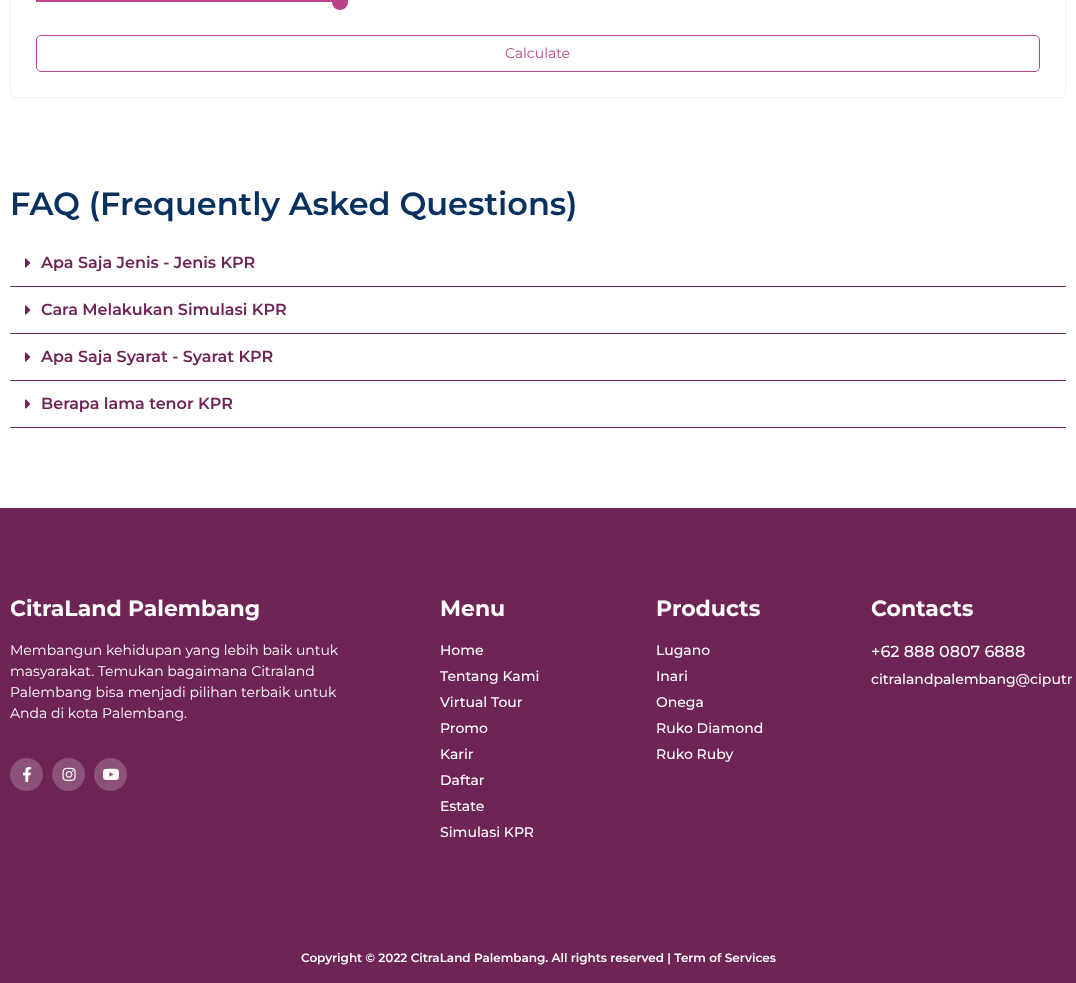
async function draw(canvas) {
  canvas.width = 1076;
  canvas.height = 983;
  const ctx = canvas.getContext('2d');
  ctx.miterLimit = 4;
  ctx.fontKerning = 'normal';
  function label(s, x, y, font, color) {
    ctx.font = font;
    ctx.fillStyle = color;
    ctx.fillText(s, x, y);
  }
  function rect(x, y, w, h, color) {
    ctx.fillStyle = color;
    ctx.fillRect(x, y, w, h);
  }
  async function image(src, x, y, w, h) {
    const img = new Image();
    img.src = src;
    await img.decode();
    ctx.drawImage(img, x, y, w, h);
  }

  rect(0, 0, 1076, 983, '#fff');
  ctx.beginPath();
  ctx.roundRect(10.5, -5.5, 1055, 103, 4.5);
  ctx.strokeStyle = '#f0f0f0';
  ctx.stroke();
  rect(36, 0, 304, 2, '#bc4289');
  ctx.beginPath();
  ctx.arc(340, 2, 8, 0, 2 * Math.PI);
  ctx.fill();
  ctx.beginPath();
  ctx.roundRect(36.5, 35.5, 1003, 36, 4.5);
  ctx.strokeStyle = '#bc4289';
  ctx.stroke();
  label('Calculate', 505, 58, '14px Montserrat', '#bc4289');
  label('FAQ (Frequently Asked Questions)', 10, 215, '600 32px Montserrat', '#083160');
  rect(10, 286, 1056, 1, '#6e2455');
  await image('assets/img1.png', 25, 258, 6, 10);
  label('Apa Saja Jenis - Jenis KPR', 41, 268, '600 16px Montserrat', '#6e2455');
  rect(10, 333, 1056, 1, '#6e2455');
  await image('assets/img1.png', 25, 305, 6, 10);
  label('Cara Melakukan Simulasi KPR', 41, 315, '600 16px Montserrat', '#6e2455');
  rect(10, 380, 1056, 1, '#6e2455');
  await image('assets/img1.png', 25, 352, 6, 10);
  label('Apa Saja Syarat - Syarat KPR', 41, 362, '600 16px Montserrat', '#6e2455');
  rect(10, 427, 1056, 1, '#6e2455');
  await image('assets/img1.png', 25, 399, 6, 10);
  label('Berapa lama tenor KPR', 41, 409, '600 16px Montserrat', '#6e2455');
  rect(0, 508, 1076, 475, '#6e2455');
  label('CitraLand Palembang', 10, 616, 'bold 22px Montserrat', '#fff');
  label('Membangun kehidupan yang lebih baik untuk', 10, 655, '14px Montserrat', '#fff');
  label('masyarakat. Temukan bagaimana Citraland', 10, 676, '14px Montserrat', '#fff');
  label('Palembang bisa menjadi pilihan terbaik untuk', 10, 697, '14px Montserrat', '#fff');
  label('Anda di kota Palembang.', 10, 718, '14px Montserrat', '#fff');
  ctx.fillStyle = '#8c5279';
  ctx.beginPath();
  ctx.arc(26.5, 774.5, 16.5, 0, 2 * Math.PI);
  ctx.fill();
  await image('assets/img2.png', 23, 766, 8, 16);
  ctx.beginPath();
  ctx.arc(68.5, 774.5, 16.5, 0, 2 * Math.PI);
  ctx.fill();
  await image('assets/img3.png', 62, 767, 14, 14);
  ctx.beginPath();
  ctx.arc(110.5, 774.5, 16.5, 0, 2 * Math.PI);
  ctx.fill();
  await image('assets/img4.png', 103, 768, 16, 12);
  label('Menu', 440, 616, 'bold 22px Montserrat', '#fff');
  label('Home', 440, 655, '500 14px Montserrat', '#fff');
  label('Tentang Kami', 440, 681, '500 14px Montserrat', '#fff');
  label('Virtual Tour', 440, 707, '500 14px Montserrat', '#fff');
  label('Promo', 440, 733, '500 14px Montserrat', '#fff');
  label('Karir', 440, 759, '500 14px Montserrat', '#fff');
  label('Daftar', 440, 785, '500 14px Montserrat', '#fff');
  label('Estate', 440, 811, '500 14px Montserrat', '#fff');
  label('Simulasi KPR', 440, 837, '500 14px Montserrat', '#fff');
  label('Products', 656, 616, 'bold 22px Montserrat', '#fff');
  label('Lugano', 656, 655, '500 14px Montserrat', '#fff');
  label('Inari', 656, 681, '500 14px Montserrat', '#fff');
  label('Onega', 656, 707, '500 14px Montserrat', '#fff');
  label('Ruko Diamond', 656, 733, '500 14px Montserrat', '#fff');
  label('Ruko Ruby', 656, 759, '500 14px Montserrat', '#fff');
  label('Contacts', 871, 616, 'bold 22px Montserrat', '#fff');
  label('+62 888 0807 6888', 871, 657, '500 16px Montserrat', '#fff');
  label('citralandpalembang@ciputr', 871, 684, '500 14px Montserrat', '#fff');
  label('Copyright © 2022 CitraLand Palembang. All rights reserved | Term of Services', 301, 962, '600 12px Montserrat', '#fff');
}

draw(document.querySelector('canvas'));
